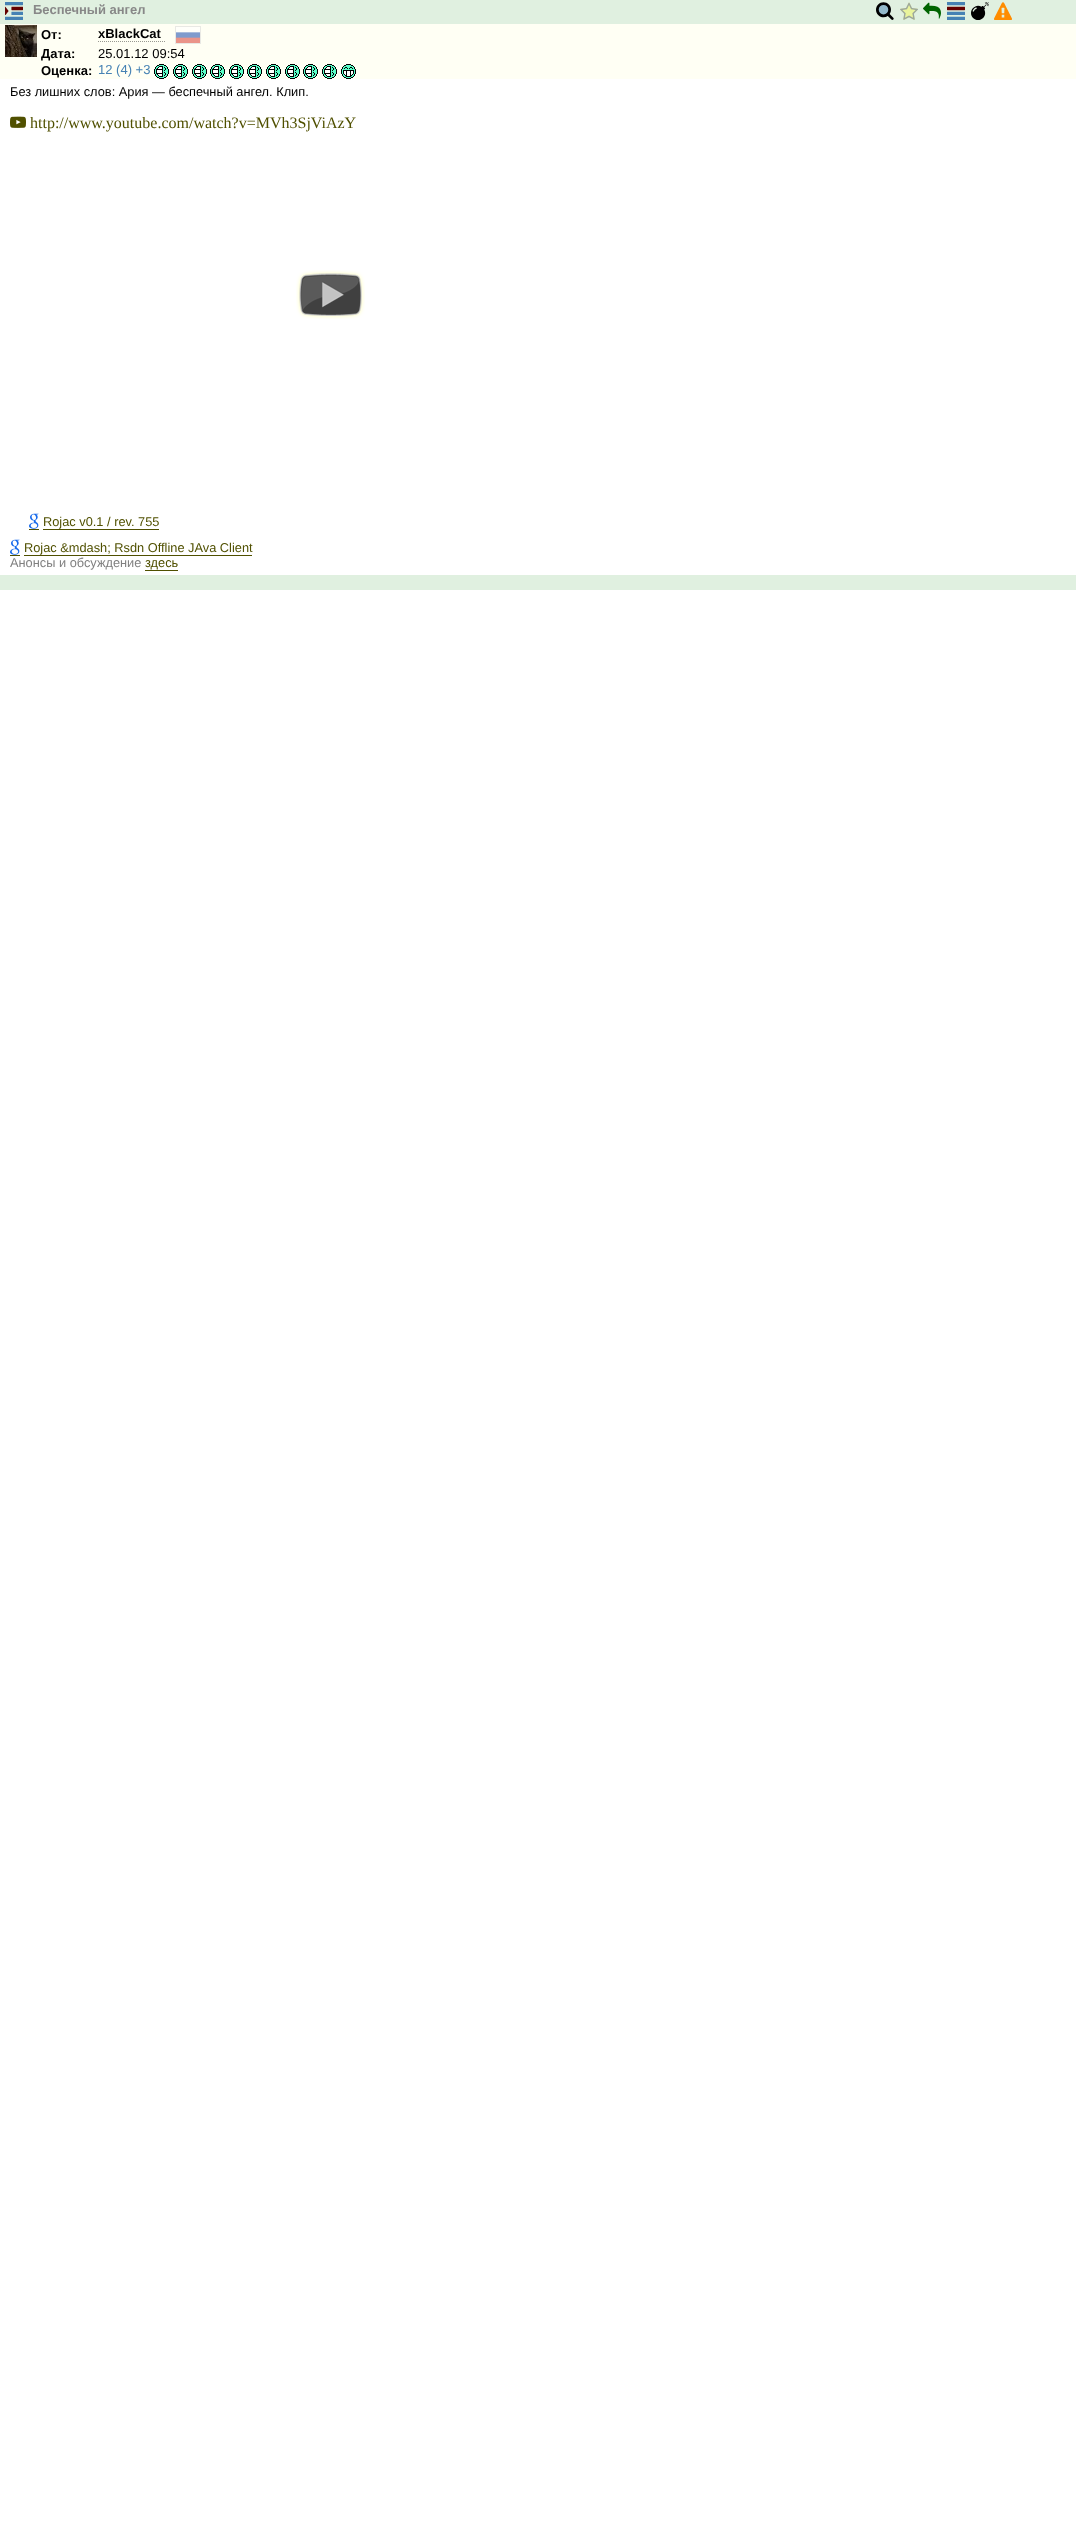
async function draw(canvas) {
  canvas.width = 1076;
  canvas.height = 2538;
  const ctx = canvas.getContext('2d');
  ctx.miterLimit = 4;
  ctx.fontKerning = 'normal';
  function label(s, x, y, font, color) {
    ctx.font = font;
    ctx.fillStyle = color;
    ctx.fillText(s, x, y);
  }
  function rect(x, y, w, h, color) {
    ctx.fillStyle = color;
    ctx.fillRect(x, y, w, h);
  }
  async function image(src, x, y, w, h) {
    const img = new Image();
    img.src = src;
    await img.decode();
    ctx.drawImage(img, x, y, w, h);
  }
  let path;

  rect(0, 0, 1076, 2538, '#fff');
  rect(0, 0, 1076, 24, '#e0f0e0');
  await image('assets/img1.png', 5, 2, 18, 18);
  label('Беспечный ангел', 33, 14, 'bold 13px Liberation Sans', '#888');
  await image('assets/img2.png', 876, 2, 18, 18);
  await image('assets/img3.png', 900, 2, 18, 18);
  await image('assets/img4.png', 923, 2, 18, 17);
  await image('assets/img5.png', 947, 2, 18, 18);
  await image('assets/img6.png', 971, 2, 18, 18);
  await image('assets/img7.png', 994, 2, 18, 18);
  rect(0, 24, 38, 55, '#fffff4');
  await image('assets/img8.png', 5, 25, 32, 32);
  rect(38, 24, 1019, 21, '#fffff4');
  label('От:', 41, 39, 'bold 13px Liberation Sans', '#000');
  ctx.strokeStyle = '#e9e9e4';
  ctx.strokeRect(175.5, 26.5, 25, 17);
  label('xBlackCat', 98, 38, 'bold 13px Liberation Sans', '#000');
  path = new Path2D('M98 41.5H165');
  ctx.strokeStyle = '#999992';
  ctx.setLineDash([1, 1]);
  ctx.stroke(path);
  await image('assets/img9.png', 176, 27, 24, 16);
  rect(1057, 24, 19, 38, '#fffff4');
  rect(38, 45, 1019, 17, '#fffff4');
  label('Дата:', 41, 58, 'bold 13px Liberation Sans', '#000');
  label('25.01.12 09:54', 98, 58, '13px Liberation Sans', '#000');
  rect(38, 62, 1038, 17, '#fffff4');
  label('Оценка:', 41, 75, 'bold 13px Liberation Sans', '#000');
  label('12 (4) +3', 98, 74, '13px Liberation Sans', '#4682b4');
  await image('assets/img10.png', 154, 64, 15, 15);
  await image('assets/img10.png', 173, 64, 15, 15);
  await image('assets/img10.png', 192, 64, 15, 15);
  await image('assets/img10.png', 210, 64, 15, 15);
  await image('assets/img10.png', 229, 64, 15, 15);
  await image('assets/img10.png', 247, 64, 15, 15);
  await image('assets/img10.png', 266, 64, 15, 15);
  await image('assets/img10.png', 285, 64, 15, 15);
  await image('assets/img10.png', 303, 64, 15, 15);
  await image('assets/img10.png', 322, 64, 15, 15);
  await image('assets/img11.png', 341, 64, 15, 15);
  label('Без лишних слов: Ария — беспечный ангел. Клип.', 10, 96, '12.8px Liberation Sans', '#000');
  await image('assets/img12.png', 10, 116, 16, 12);
  label('http://www.youtube.com/watch?v=MVh3SjViAzY', 30, 128, '16px Liberation Serif', '#505000');
  await image('assets/img13.png', 296, 270, 69, 49);
  await image('assets/img14.png', 29, 513, 10, 16);
  label('Rojac v0.1 / rev. 755', 43, 526, '12.8px Liberation Sans', '#505000');
  rect(29, 529, 10, 1, '#505000');
  rect(43, 529, 116, 1, '#505000');
  await image('assets/img14.png', 10, 539, 10, 16);
  label('Rojac &mdash; Rsdn Offline JAva Client', 24, 552, '12.8px Liberation Sans', '#505000');
  rect(10, 555, 10, 1, '#505000');
  rect(24, 555, 228, 1, '#505000');
  label('Анонсы и обсуждение', 10, 567, '12.8px Liberation Sans', '#808080');
  label('здесь', 145, 567, '12.8px Liberation Sans', '#505000');
  rect(145, 570, 33, 1, '#505000');
  rect(0, 575, 1076, 15, '#e0f0e0');
}

draw(document.querySelector('canvas'));
